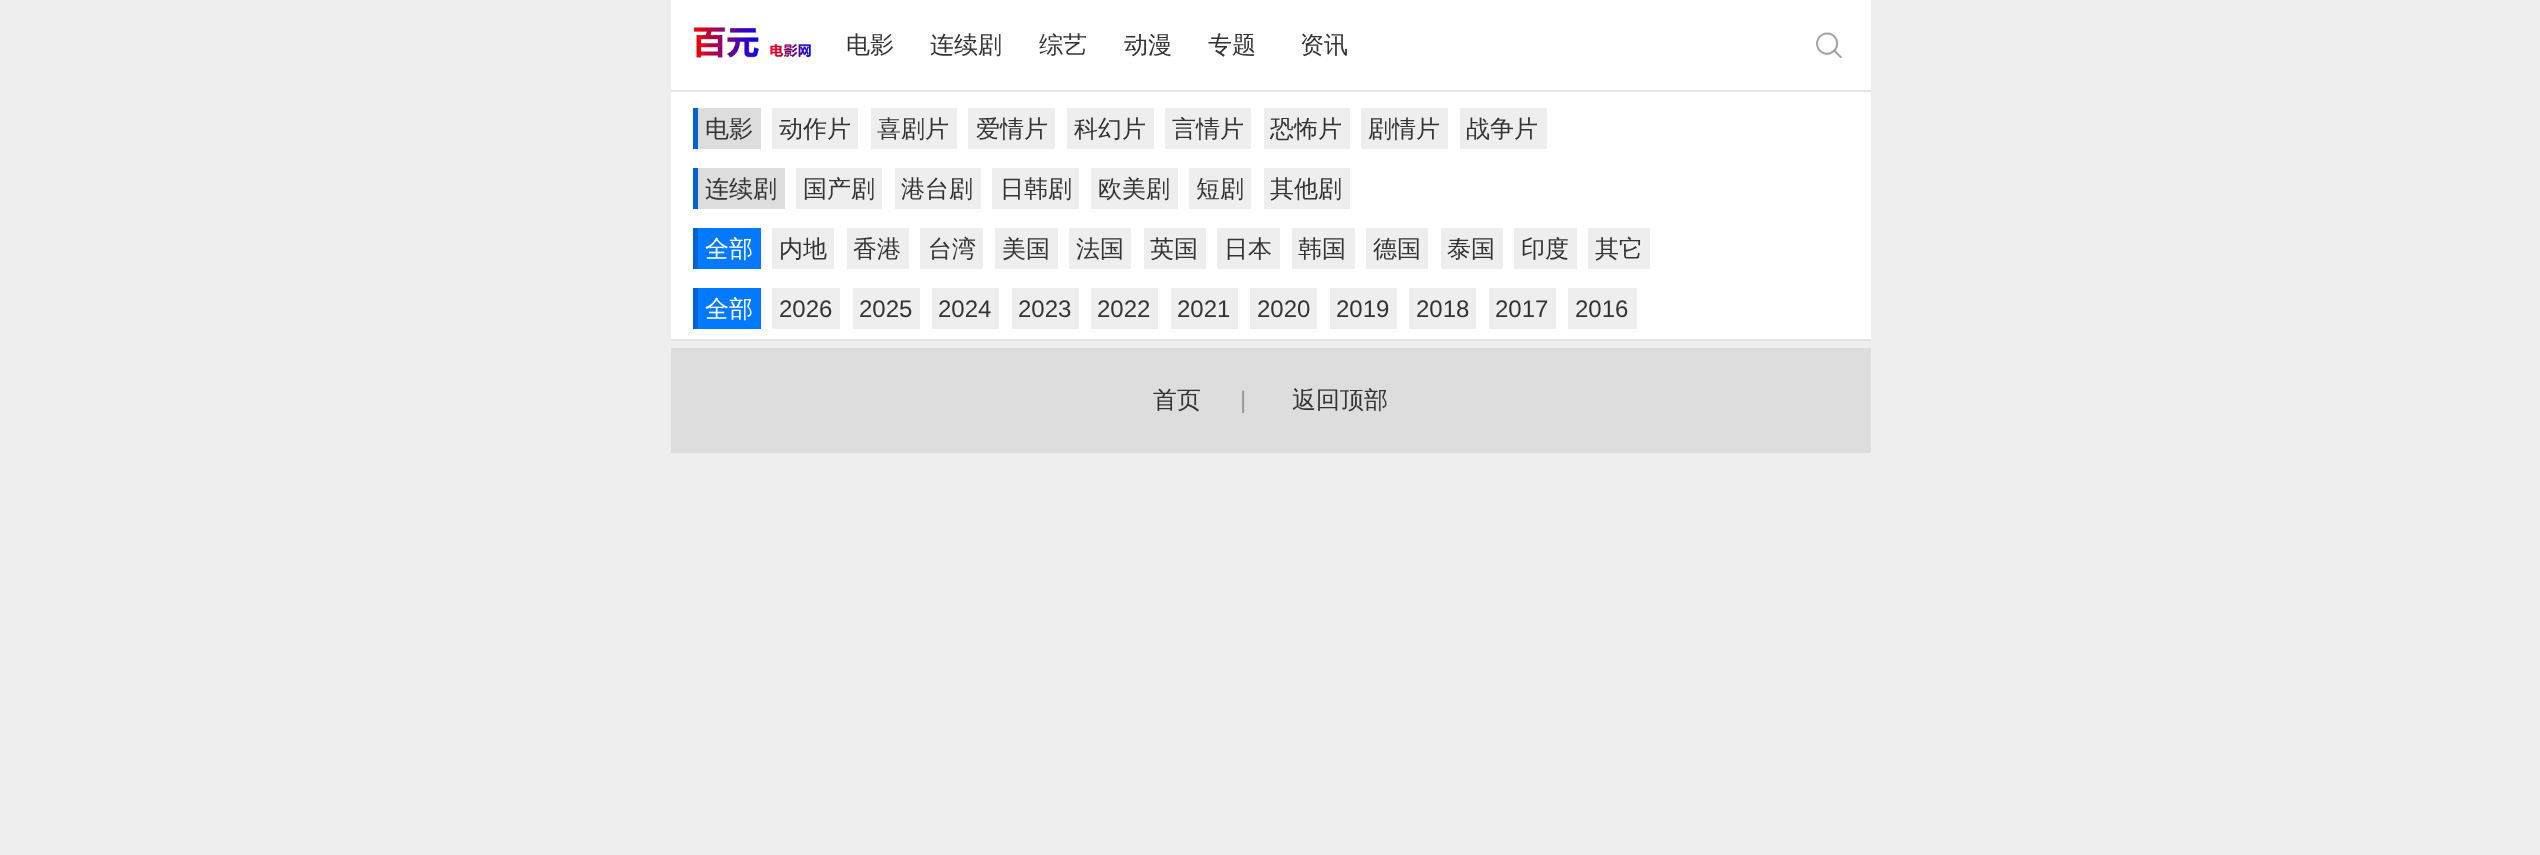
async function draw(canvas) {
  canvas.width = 2540;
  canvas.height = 855;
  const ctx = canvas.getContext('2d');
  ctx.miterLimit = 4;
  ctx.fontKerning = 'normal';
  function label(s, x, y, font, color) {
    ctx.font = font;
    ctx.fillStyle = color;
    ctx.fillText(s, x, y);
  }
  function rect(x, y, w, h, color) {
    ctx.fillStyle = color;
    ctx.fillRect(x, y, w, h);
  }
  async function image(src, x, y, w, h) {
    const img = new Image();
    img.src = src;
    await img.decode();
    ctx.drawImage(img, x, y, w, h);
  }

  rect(0, 0, 2540, 855, '#eee');
  rect(671, 0, 1200, 90, '#fff');
  rect(671, 90, 1200, 2, '#e5e5e5');
  await image('assets/img1.png', 693, 27, 118, 31);
  label('电影', 846, 53, '500 24px WenQuanYi Zen Hei', '#333');
  label('连续剧', 930, 53, '500 24px WenQuanYi Zen Hei', '#333');
  label('综艺', 1039, 53, '500 24px WenQuanYi Zen Hei', '#333');
  label('动漫', 1124, 53, '500 24px WenQuanYi Zen Hei', '#333');
  label('专题', 1208, 53, '500 24px WenQuanYi Zen Hei', '#333');
  label('资讯', 1300, 53, '500 24px WenQuanYi Zen Hei', '#333');
  await image('assets/img2.png', 1816, 32, 26, 26);
  rect(671, 92, 1200, 247, '#fff');
  rect(671, 339, 1200, 2, '#e5e5e5');
  rect(698, 108, 63, 41, '#ddd');
  label('电影', 705, 137, '500 24px WenQuanYi Zen Hei', '#333');
  rect(693, 108, 5, 41, '#0064d4');
  rect(772, 108, 86, 41, '#eee');
  label('动作片', 779, 137, '500 24px WenQuanYi Zen Hei', '#333');
  rect(871, 108, 86, 41, '#eee');
  label('喜剧片', 877, 137, '500 24px WenQuanYi Zen Hei', '#333');
  rect(968, 108, 87, 41, '#eee');
  label('爱情片', 976, 137, '500 24px WenQuanYi Zen Hei', '#333');
  rect(1067, 108, 87, 41, '#eee');
  label('科幻片', 1074, 137, '500 24px WenQuanYi Zen Hei', '#333');
  rect(1165, 108, 86, 41, '#eee');
  label('言情片', 1172, 137, '500 24px WenQuanYi Zen Hei', '#333');
  rect(1264, 108, 86, 41, '#eee');
  label('恐怖片', 1270, 137, '500 24px WenQuanYi Zen Hei', '#333');
  rect(1361, 108, 87, 41, '#eee');
  label('剧情片', 1368, 137, '500 24px WenQuanYi Zen Hei', '#333');
  rect(1460, 108, 87, 41, '#eee');
  label('战争片', 1466, 137, '500 24px WenQuanYi Zen Hei', '#333');
  rect(698, 168, 87, 41, '#ddd');
  label('连续剧', 705, 197, '500 24px WenQuanYi Zen Hei', '#333');
  rect(693, 168, 5, 41, '#0064d4');
  rect(796, 168, 86, 41, '#eee');
  label('国产剧', 803, 197, '500 24px WenQuanYi Zen Hei', '#333');
  rect(895, 168, 86, 41, '#eee');
  label('港台剧', 901, 197, '500 24px WenQuanYi Zen Hei', '#333');
  rect(992, 168, 87, 41, '#eee');
  label('日韩剧', 1000, 197, '500 24px WenQuanYi Zen Hei', '#333');
  rect(1091, 168, 87, 41, '#eee');
  label('欧美剧', 1098, 197, '500 24px WenQuanYi Zen Hei', '#333');
  rect(1189, 168, 62, 41, '#eee');
  label('短剧', 1196, 197, '500 24px WenQuanYi Zen Hei', '#333');
  rect(1264, 168, 86, 41, '#eee');
  label('其他剧', 1270, 197, '500 24px WenQuanYi Zen Hei', '#333');
  rect(698, 228, 63, 41, '#0279fe');
  label('全部', 705, 257, '500 24px WenQuanYi Zen Hei', '#fff');
  rect(693, 228, 5, 41, '#0064d4');
  rect(772, 228, 62, 41, '#eee');
  label('内地', 779, 257, '500 24px WenQuanYi Zen Hei', '#333');
  rect(847, 228, 62, 41, '#eee');
  label('香港', 853, 257, '500 24px WenQuanYi Zen Hei', '#333');
  rect(920, 228, 63, 41, '#eee');
  label('台湾', 928, 257, '500 24px WenQuanYi Zen Hei', '#333');
  rect(995, 228, 63, 41, '#eee');
  label('美国', 1002, 257, '500 24px WenQuanYi Zen Hei', '#333');
  rect(1069, 228, 62, 41, '#eee');
  label('法国', 1076, 257, '500 24px WenQuanYi Zen Hei', '#333');
  rect(1144, 228, 62, 41, '#eee');
  label('英国', 1150, 257, '500 24px WenQuanYi Zen Hei', '#333');
  rect(1217, 228, 63, 41, '#eee');
  label('日本', 1224, 257, '500 24px WenQuanYi Zen Hei', '#333');
  rect(1292, 228, 63, 41, '#eee');
  label('韩国', 1298, 257, '500 24px WenQuanYi Zen Hei', '#333');
  rect(1366, 228, 62, 41, '#eee');
  label('德国', 1373, 257, '500 24px WenQuanYi Zen Hei', '#333');
  rect(1441, 228, 62, 41, '#eee');
  label('泰国', 1447, 257, '500 24px WenQuanYi Zen Hei', '#333');
  rect(1514, 228, 63, 41, '#eee');
  label('印度', 1521, 257, '500 24px WenQuanYi Zen Hei', '#333');
  rect(1588, 228, 62, 41, '#eee');
  label('其它', 1595, 257, '500 24px WenQuanYi Zen Hei', '#333');
  rect(698, 288, 63, 41, '#0279fe');
  label('全部', 705, 317, '500 24px WenQuanYi Zen Hei', '#fff');
  rect(693, 288, 5, 41, '#0064d4');
  rect(772, 288, 68, 41, '#eee');
  label('2026', 779, 317, '24px Liberation Sans', '#333');
  rect(853, 288, 67, 41, '#eee');
  label('2025', 859, 317, '24px Liberation Sans', '#333');
  rect(932, 288, 67, 41, '#eee');
  label('2024', 938, 317, '24px Liberation Sans', '#333');
  rect(1012, 288, 67, 41, '#eee');
  label('2023', 1018, 317, '24px Liberation Sans', '#333');
  rect(1091, 288, 67, 41, '#eee');
  label('2022', 1097, 317, '24px Liberation Sans', '#333');
  rect(1171, 288, 67, 41, '#eee');
  label('2021', 1177, 317, '24px Liberation Sans', '#333');
  rect(1250, 288, 67, 41, '#eee');
  label('2020', 1257, 317, '24px Liberation Sans', '#333');
  rect(1330, 288, 67, 41, '#eee');
  label('2019', 1336, 317, '24px Liberation Sans', '#333');
  rect(1409, 288, 67, 41, '#eee');
  label('2018', 1416, 317, '24px Liberation Sans', '#333');
  rect(1489, 288, 67, 41, '#eee');
  label('2017', 1495, 317, '24px Liberation Sans', '#333');
  rect(1568, 288, 69, 41, '#eee');
  label('2016', 1575, 317, '24px Liberation Sans', '#333');
  rect(671, 348, 1200, 105, '#ddd');
  label('首页', 1153, 408, '500 24px WenQuanYi Zen Hei', '#333');
  label('|', 1240, 408, '24px Liberation Sans', '#999');
  label('返回顶部', 1292, 408, '500 24px WenQuanYi Zen Hei', '#333');
}

draw(document.querySelector('canvas'));
